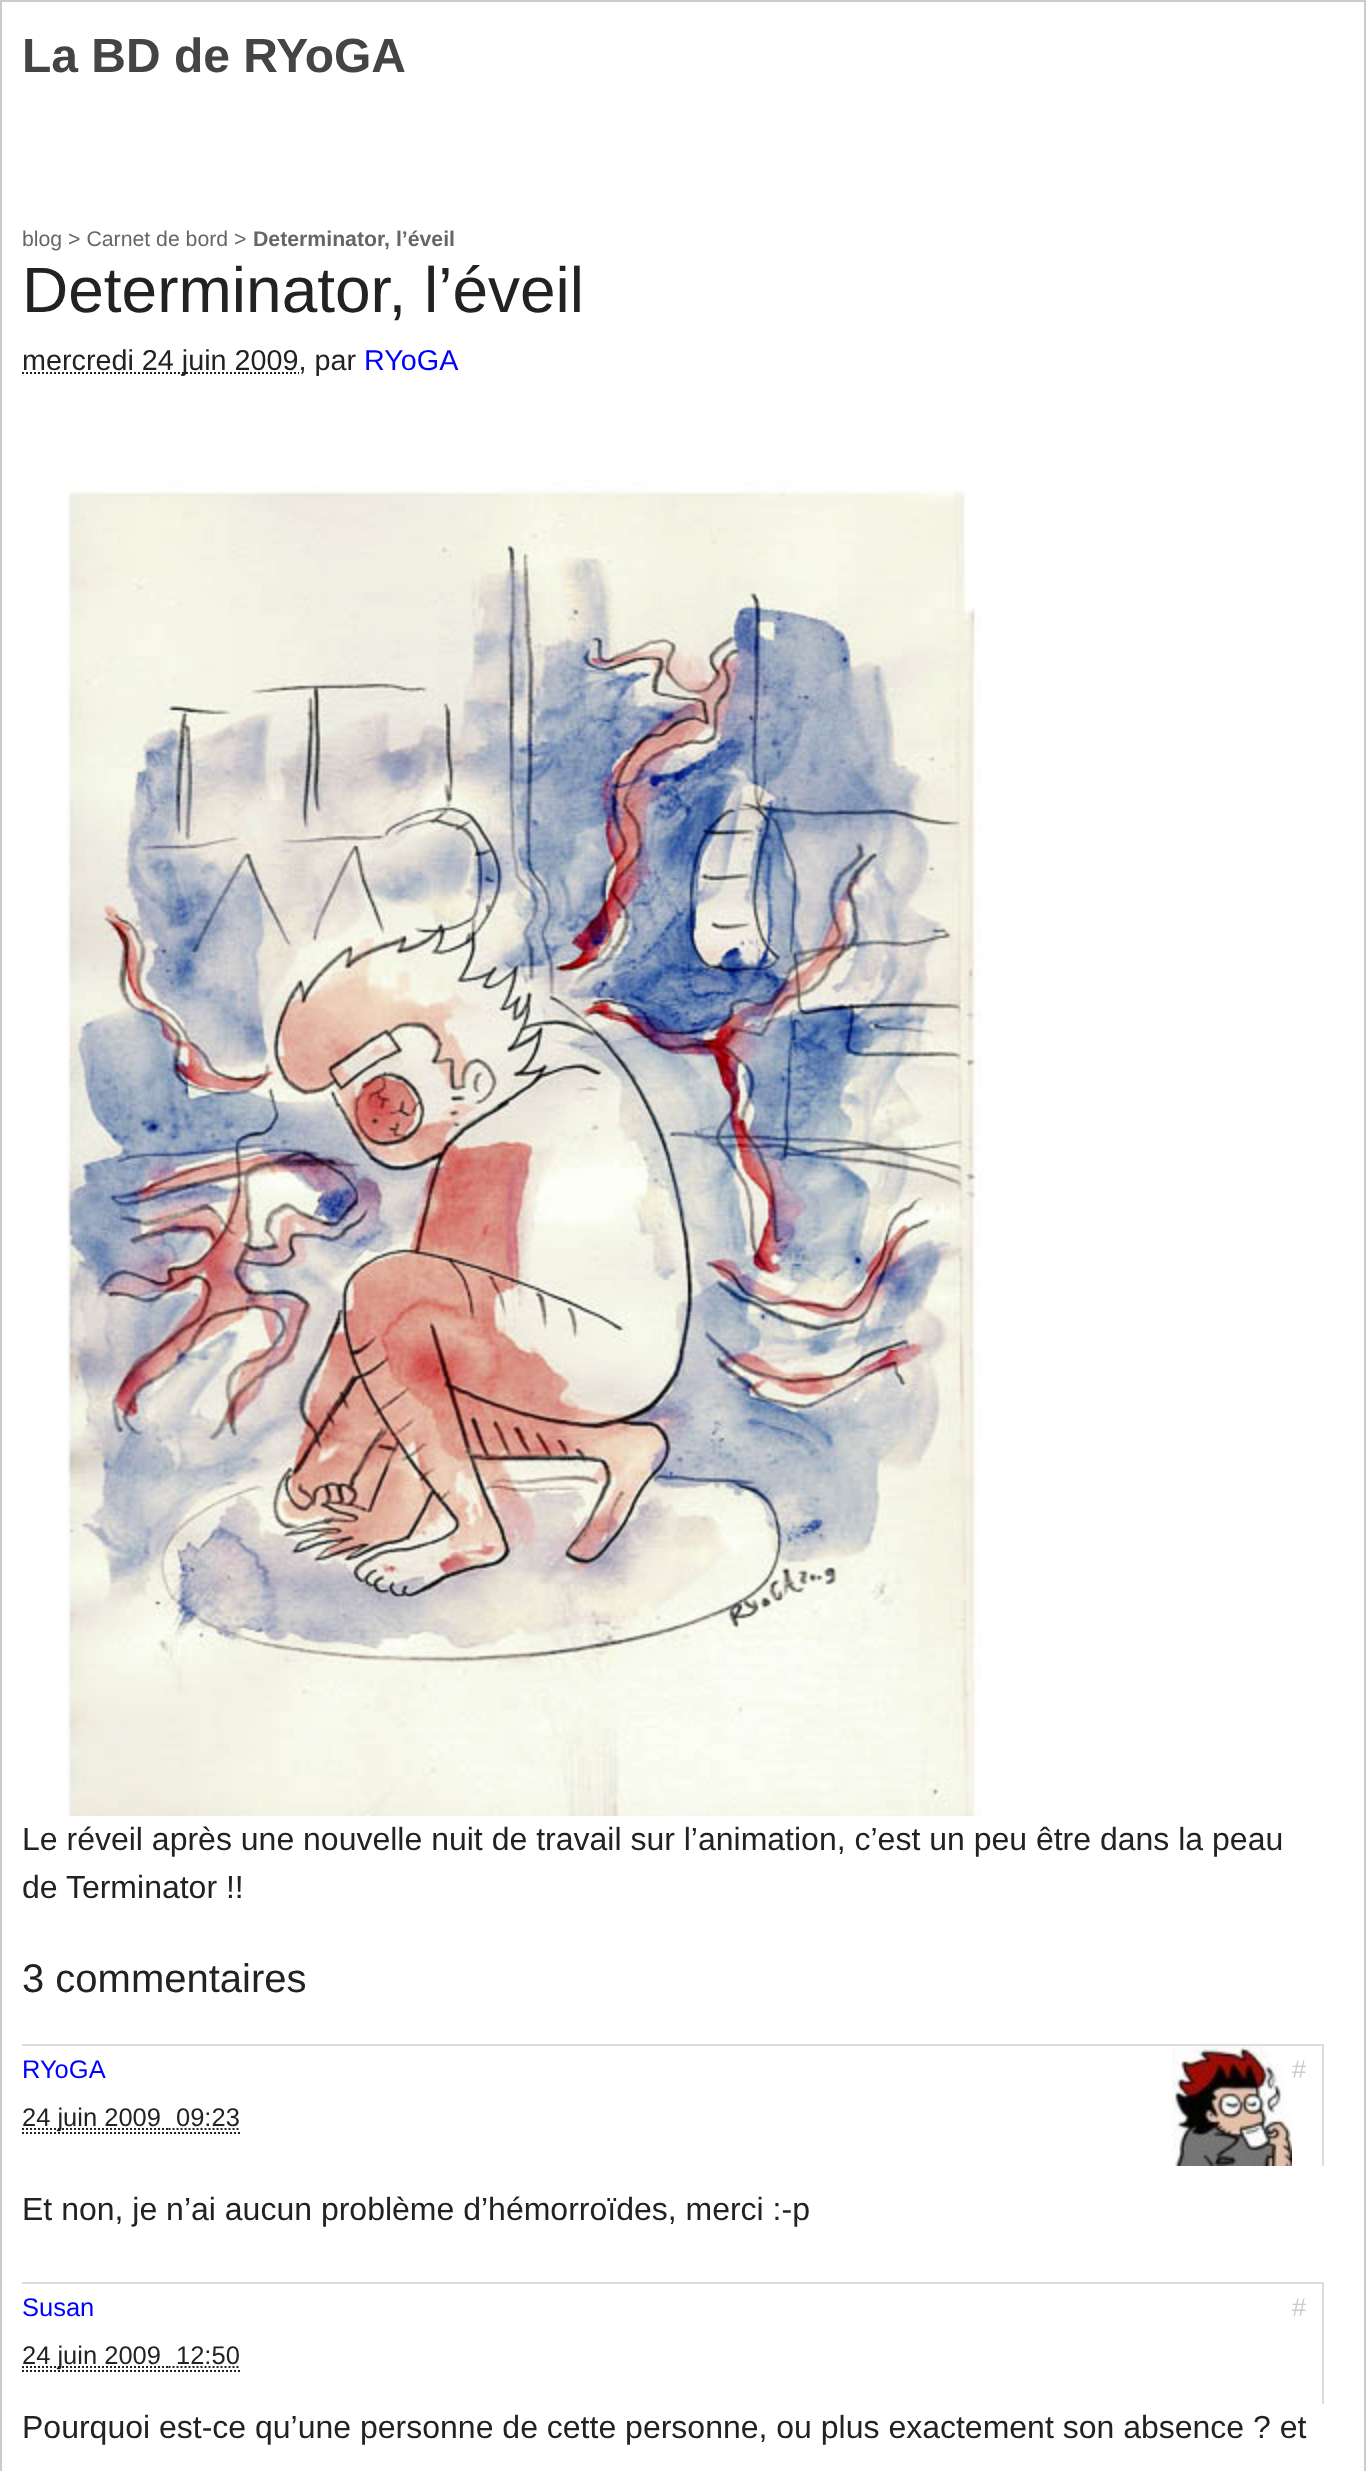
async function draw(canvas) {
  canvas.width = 1366;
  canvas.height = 2471;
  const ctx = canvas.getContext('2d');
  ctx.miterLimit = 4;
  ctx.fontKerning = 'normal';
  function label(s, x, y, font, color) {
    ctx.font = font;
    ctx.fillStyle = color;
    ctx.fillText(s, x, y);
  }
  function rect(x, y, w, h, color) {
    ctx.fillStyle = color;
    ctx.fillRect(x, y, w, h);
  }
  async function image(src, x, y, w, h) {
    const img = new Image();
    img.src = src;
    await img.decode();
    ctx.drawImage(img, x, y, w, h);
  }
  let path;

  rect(0, 0, 1366, 2471, '#fff');
  ctx.strokeStyle = '#ccc';
  ctx.lineWidth = 2;
  ctx.strokeRect(1, 1, 1364, 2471);
  label('La BD de RYoGA', 22, 72, 'bold 48px Liberation Sans', '#444');
  label('blog > Carnet de bord >', 22, 246, '21.25px Liberation Sans', '#666');
  label('Determinator, l’éveil', 253, 246, 'bold 21.25px Liberation Sans', '#666');
  label('Determinator, l’éveil', 22, 312, '64px Liberation Sans', '#222');
  path = new Path2D('M22 373H299');
  ctx.strokeStyle = '#222';
  ctx.setLineDash([2, 2]);
  ctx.stroke(path);
  label('mercredi 24 juin 2009, par', 22, 370, '28.75px Liberation Sans', '#222');
  label('RYoGA', 364, 370, '28.75px Liberation Sans', '#00f');
  await image('assets/img1.png', 67, 480, 915, 1336);
  label('Le réveil après une nouvelle nuit de travail sur l’animation, c’est un peu être dans la peau', 22, 1850, '32px Liberation Sans', '#222');
  label('de Terminator !!', 22, 1898, '32px Liberation Sans', '#222');
  label('3 commentaires', 22, 1992, '40px Liberation Sans', '#222');
  rect(22, 2044, 1302, 2, '#ddd');
  rect(1322, 2046, 2, 120, '#ddd');
  label('RYoGA', 22, 2078, '25.5px Liberation Sans', '#00f');
  path = new Path2D('M22 2129H168.5');
  ctx.stroke(path);
  label('24 juin 2009', 22, 2126, '25.5px Liberation Sans', '#222');
  path = new Path2D('M22 2133H240');
  ctx.stroke(path);
  label('09:23', 176, 2126, '25.5px Liberation Sans', '#222');
  path = new Path2D('M168.5 2129H240');
  ctx.stroke(path);
  label('#', 1292, 2078, '25.5px Liberation Sans', '#ccc');
  await image('assets/img2.png', 1172, 2046, 120, 120);
  label('Et non, je n’ai aucun problème d’hémorroïdes, merci :-p', 22, 2220, '32px Liberation Sans', '#222');
  rect(22, 2282, 1302, 2, '#ddd');
  rect(1322, 2284, 2, 120, '#ddd');
  label('Susan', 22, 2316, '25.5px Liberation Sans', '#00f');
  path = new Path2D('M22 2367H168.5');
  ctx.stroke(path);
  label('24 juin 2009', 22, 2364, '25.5px Liberation Sans', '#222');
  path = new Path2D('M22 2371H240');
  ctx.stroke(path);
  label('12:50', 176, 2364, '25.5px Liberation Sans', '#222');
  path = new Path2D('M168.5 2367H240');
  ctx.stroke(path);
  label('#', 1292, 2316, '25.5px Liberation Sans', '#ccc');
  label('Pourquoi est-ce qu’une personne de cette personne, ou plus exactement son absence ? et', 22, 2438, '32px Liberation Sans', '#222');
}

draw(document.querySelector('canvas'));
